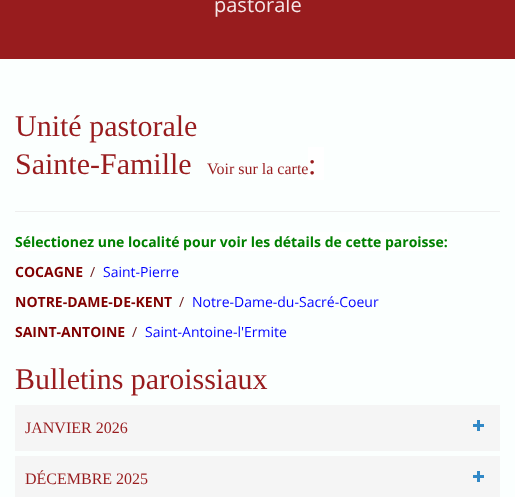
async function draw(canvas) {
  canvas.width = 515;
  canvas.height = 497;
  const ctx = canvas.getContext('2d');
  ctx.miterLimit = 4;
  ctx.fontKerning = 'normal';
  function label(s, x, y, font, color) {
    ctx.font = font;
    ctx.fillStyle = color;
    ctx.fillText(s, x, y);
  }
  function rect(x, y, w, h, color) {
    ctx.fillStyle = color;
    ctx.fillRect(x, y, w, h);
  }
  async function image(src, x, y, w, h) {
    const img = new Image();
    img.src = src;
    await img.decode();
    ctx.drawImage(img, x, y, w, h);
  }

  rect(0, 0, 515, 497, '#981c1e');
  label('pastorale', 214, 12, '20px Open Sans', '#f5e8e9');
  rect(0, 59, 515, 438, '#fbfffe');
  label('Unité pastorale', 15, 136, '30px Liberation Serif', '#981c1e');
  label('Sainte-Famille', 15, 174, '30px Liberation Serif', '#981c1e');
  label('Voir sur la carte', 207, 174, '16px Liberation Serif', '#981c1e');
  rect(308, 147, 16, 33, '#fff');
  label(':', 308, 174, '30px Liberation Serif', '#981c1e');
  rect(15, 211, 485, 1, '#eee');
  rect(15, 232, 433, 19, '#fff');
  label('Sélectionez une localité pour voir les détails de cette paroisse:', 15, 247, 'bold 14px Open Sans', '#008000');
  label('COCAGNE', 15, 277, 'bold 14px Open Sans', '#800000');
  label('/', 90, 277, '14px Open Sans', '#6b1b1b');
  label('Saint-Pierre', 103, 277, '14px Open Sans', '#00f');
  label('NOTRE-DAME-DE-KENT', 15, 307, 'bold 14px Open Sans', '#800000');
  label('/', 179, 307, '14px Open Sans', '#6b1b1b');
  label('Notre-Dame-du-Sacré-Coeur', 192, 307, '14px Open Sans', '#00f');
  label('SAINT-ANTOINE', 15, 337, 'bold 14px Open Sans', '#800000');
  label('/', 132, 337, '14px Open Sans', '#6b1b1b');
  label('Saint-Antoine-l\'Ermite', 145, 337, '14px Open Sans', '#00f');
  label('Bulletins paroissiaux', 15, 389, '30px Liberation Serif', '#981c1e');
  rect(15, 405, 485, 46, '#f5f5f5');
  label('JANVIER 2026', 25, 433, '16px Liberation Serif', '#981c1e');
  await image('assets/img1.png', 473, 420, 11, 11);
  rect(15, 456, 485, 41, '#f5f5f5');
  label('DÉCEMBRE 2025', 25, 484, '16px Liberation Serif', '#981c1e');
  await image('assets/img1.png', 473, 471, 11, 11);
}

draw(document.querySelector('canvas'));
